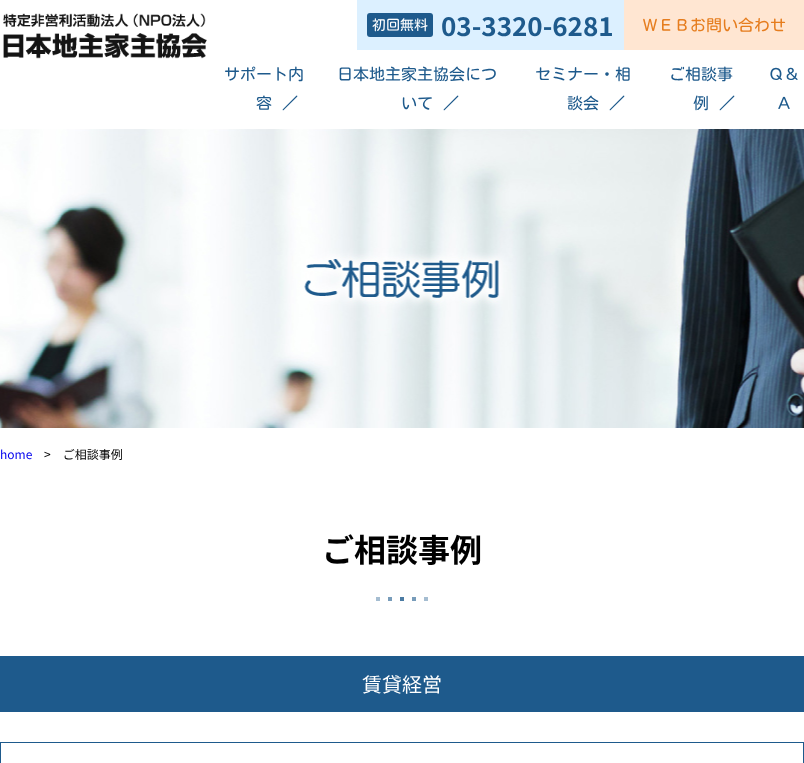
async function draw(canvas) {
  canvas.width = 804;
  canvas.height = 763;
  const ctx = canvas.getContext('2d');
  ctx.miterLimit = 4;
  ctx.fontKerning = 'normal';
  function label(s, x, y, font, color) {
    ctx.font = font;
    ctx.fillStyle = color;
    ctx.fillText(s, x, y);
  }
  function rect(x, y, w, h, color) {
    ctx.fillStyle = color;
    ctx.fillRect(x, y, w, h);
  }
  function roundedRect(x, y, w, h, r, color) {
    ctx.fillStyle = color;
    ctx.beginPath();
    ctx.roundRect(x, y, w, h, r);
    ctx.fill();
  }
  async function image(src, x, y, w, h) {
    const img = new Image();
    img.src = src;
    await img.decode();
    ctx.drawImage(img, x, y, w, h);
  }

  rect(0, 0, 804, 763, '#fff');
  await image('assets/img1.png', 3, 13, 204, 46);
  rect(357, 0, 267, 50, '#dcf0ff');
  roundedRect(367, 13, 66, 24, 3, '#1e5a8c');
  label('初回無料', 372, 30, '14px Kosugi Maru', '#fff');
  label('03-3320-6281', 441, 36, 'bold 26px Noto Sans JP', '#1e5a8c');
  rect(624, 0, 180, 50, '#ffe6d2');
  label('ＷＥＢお問い合わせ', 642, 31, '16px Kosugi Maru', '#e67d1e');
  label('サポート内', 224, 80, '16px Kosugi Maru', '#1e5a8c');
  label('容', 256, 109, '16px Kosugi Maru', '#1e5a8c');
  label('／', 282, 109, '16px Kosugi Maru', '#1e5a8c');
  label('日本地主家主協会につ', 337, 80, '16px Kosugi Maru', '#1e5a8c');
  label('いて', 401, 109, '16px Kosugi Maru', '#1e5a8c');
  label('／', 443, 109, '16px Kosugi Maru', '#1e5a8c');
  label('セミナー・相', 535, 80, '16px Kosugi Maru', '#1e5a8c');
  label('談会', 567, 109, '16px Kosugi Maru', '#1e5a8c');
  label('／', 609, 109, '16px Kosugi Maru', '#1e5a8c');
  label('ご相談事', 669, 80, '16px Kosugi Maru', '#1e5a8c');
  label('例', 693, 109, '16px Kosugi Maru', '#1e5a8c');
  label('／', 719, 109, '16px Kosugi Maru', '#1e5a8c');
  label('Ｑ＆', 768, 80, '16px Kosugi Maru', '#1e5a8c');
  label('Ａ', 776, 109, '16px Kosugi Maru', '#1e5a8c');
  await image('assets/img2.png', 0, 129, 804, 299);
  label('home', 0, 459, '12px Noto Sans JP', '#00e');
  label('>　ご相談事例', 44, 459, '12px Noto Sans JP', '#000');
  label('ご相談事例', 322, 562, 'bold 32px Noto Sans JP', '#000');
  await image('assets/img3.png', 376, 597, 52, 4);
  rect(0, 656, 804, 56, '#1e5a8c');
  label('賃貸経営', 362, 692, '20px Noto Sans JP', '#fff');
  ctx.strokeStyle = '#1e5a8c';
  ctx.strokeRect(0.5, 742.5, 803, 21);
}

draw(document.querySelector('canvas'));
